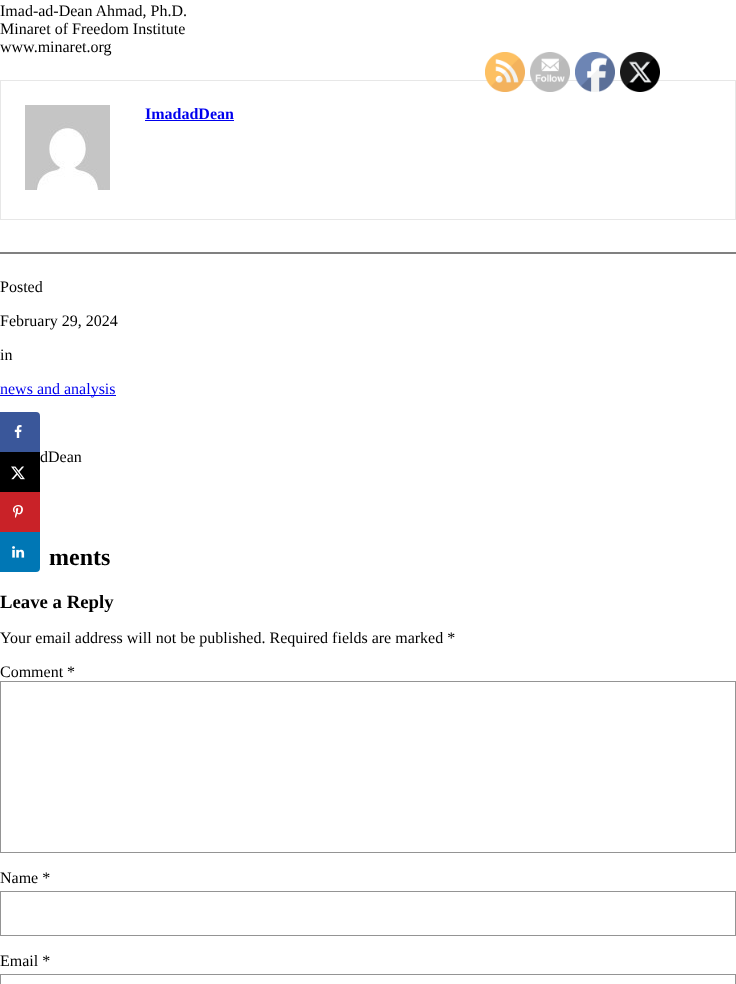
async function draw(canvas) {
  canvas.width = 736;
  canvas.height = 984;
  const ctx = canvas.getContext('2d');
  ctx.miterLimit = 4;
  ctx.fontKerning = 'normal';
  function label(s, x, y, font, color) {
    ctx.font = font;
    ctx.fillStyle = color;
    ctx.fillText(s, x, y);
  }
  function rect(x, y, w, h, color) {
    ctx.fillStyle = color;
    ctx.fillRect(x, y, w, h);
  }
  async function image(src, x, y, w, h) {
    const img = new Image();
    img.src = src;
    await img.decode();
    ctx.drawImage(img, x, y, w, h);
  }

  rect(0, 0, 736, 984, '#fff');
  label('Imad-ad-Dean Ahmad, Ph.D.', 0, 16, '16px Liberation Serif', '#000');
  label('Minaret of Freedom Institute', 0, 34, '16px Liberation Serif', '#000');
  label('www.minaret.org', 0, 52, '16px Liberation Serif', '#000');
  ctx.strokeStyle = '#e7e7e7';
  ctx.strokeRect(0.5, 80.5, 735, 139);
  await image('assets/img1.png', 25, 105, 85, 85);
  label('ImadadDean', 145, 119, 'bold 16px Liberation Serif', '#00e');
  rect(145, 120, 89, 1, '#00e');
  rect(0, 252, 736, 2, '#808080');
  label('Posted', 0, 292, '16px Liberation Serif', '#000');
  label('February 29, 2024', 0, 326, '16px Liberation Serif', '#000');
  label('in', 0, 360, '16px Liberation Serif', '#000');
  rect(0, 395, 116, 1, '#00e');
  label('news and analysis', 0, 394, '16px Liberation Serif', '#00e');
  label('dDean', 40, 462, '16px Liberation Serif', '#000');
  label('ments', 49, 565, 'bold 24px Liberation Serif', '#000');
  label('Leave a Reply', 0, 608, 'bold 18.75px Liberation Serif', '#000');
  label('Your email address will not be published. Required fields are marked *', 0, 643, '16px Liberation Serif', '#000');
  label('Comment *', 0, 677, '16px Liberation Serif', '#000');
  ctx.strokeStyle = '#949494';
  ctx.strokeRect(0.5, 681.5, 735, 171);
  label('Name *', 0, 883, '16px Liberation Serif', '#000');
  ctx.strokeRect(0.5, 891.5, 735, 44);
  label('Email *', 0, 966, '16px Liberation Serif', '#000');
  ctx.strokeRect(0.5, 974.5, 735, 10);
  await image('assets/img2.png', 485, 52, 40, 40);
  await image('assets/img3.png', 530, 52, 40, 40);
  await image('assets/img4.png', 575, 52, 40, 40);
  await image('assets/img5.png', 620, 52, 40, 40);
  ctx.fillStyle = '#3a579a';
  ctx.beginPath();
  ctx.roundRect(1, 413, 38, 38, [0, 3, 0, 0]);
  ctx.fill();
  ctx.strokeStyle = '#3a579a';
  ctx.lineWidth = 2;
  ctx.stroke();
  await image('assets/img6.png', 14, 425, 8, 13);
  rect(0, 452, 40, 40, '#000');
  await image('assets/img7.png', 11, 466, 14, 14);
  rect(0, 492, 40, 40, '#c92228');
  await image('assets/img8.png', 13, 505, 10, 13);
  ctx.fillStyle = '#0077b5';
  ctx.beginPath();
  ctx.roundRect(1, 533, 38, 38, [0, 0, 3, 0]);
  ctx.fill();
  ctx.strokeStyle = '#0077b5';
  ctx.stroke();
  await image('assets/img9.png', 12, 546, 13, 12);
}

draw(document.querySelector('canvas'));
